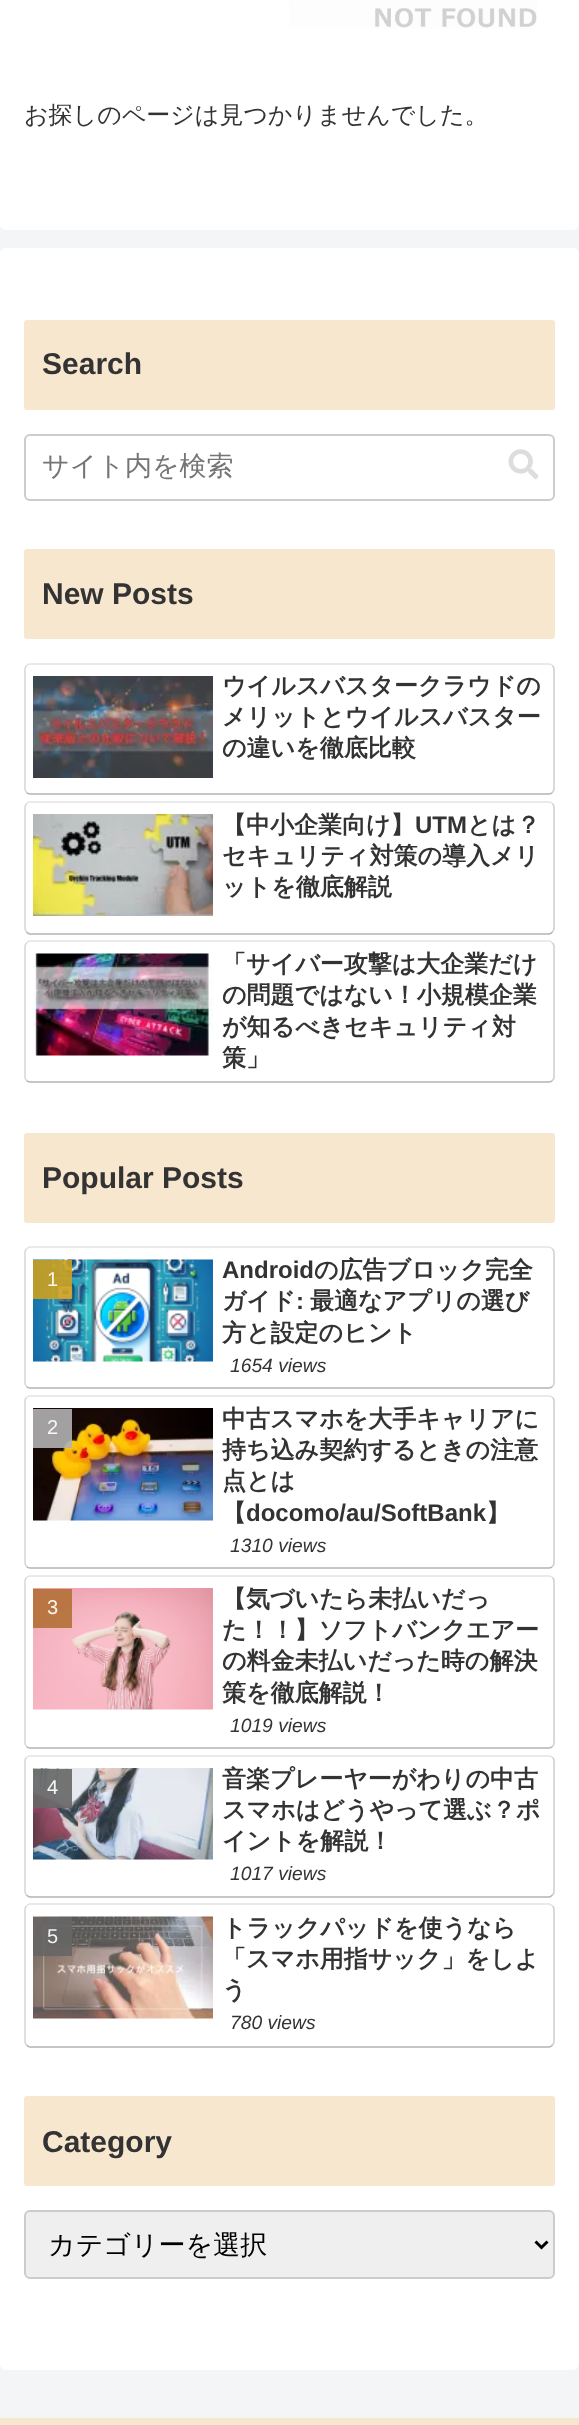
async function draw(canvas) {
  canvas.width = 579;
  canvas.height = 2425;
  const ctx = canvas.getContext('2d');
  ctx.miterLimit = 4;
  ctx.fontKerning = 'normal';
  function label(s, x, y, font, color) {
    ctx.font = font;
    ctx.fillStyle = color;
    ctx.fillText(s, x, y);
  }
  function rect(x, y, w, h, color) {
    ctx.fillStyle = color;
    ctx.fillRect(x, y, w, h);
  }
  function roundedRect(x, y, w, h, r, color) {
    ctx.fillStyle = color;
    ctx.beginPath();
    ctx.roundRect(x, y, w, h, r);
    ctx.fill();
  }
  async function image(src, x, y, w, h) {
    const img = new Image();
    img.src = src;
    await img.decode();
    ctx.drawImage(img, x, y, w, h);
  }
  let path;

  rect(0, 0, 579, 2425, '#f4f5f7');
  roundedRect(0, -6, 579, 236, 6, '#fff');
  await image('assets/img1.png', 289, 0, 248, 29);
  label('お探しのページは見つかりませんでした。', 24, 123, '500 24px WenQuanYi Zen Hei', '#333');
  roundedRect(0, 248, 579, 2122, 6, '#fff');
  roundedRect(24, 320, 531, 90, 3, '#f7e7cf');
  label('Search', 42, 374, 'bold 30px Liberation Sans', '#333');
  ctx.beginPath();
  ctx.roundRect(25, 435, 529, 65, 5);
  ctx.strokeStyle = '#ccc';
  ctx.lineWidth = 2;
  ctx.stroke();
  label('サイト内を検索', 42, 475, '500 27px WenQuanYi Zen Hei', '#757575');
  await image('assets/img2.png', 508, 449, 31, 31);
  roundedRect(24, 549, 531, 90, 3, '#f7e7cf');
  label('New Posts', 42, 604, 'bold 30px Liberation Sans', '#333');
  path = new Path2D('M26.5 665.5C27.5 664.5 28.5 664 30 664H549C550.5 664 551.5 664.5 552.5 665.5');
  ctx.strokeStyle = '#e3e3e3';
  ctx.lineWidth = 1.5;
  ctx.stroke(path);
  path = new Path2D('M552.5 665.5L554 668.5V789.5L552.5 792.5');
  ctx.strokeStyle = '#cecece';
  ctx.stroke(path);
  path = new Path2D('M552.5 792.5C551.5 793.5 550.5 794 549 794H30C28.5 794 27.5 793.5 26.5 792.5');
  ctx.strokeStyle = '#b4b4b4';
  ctx.stroke(path);
  path = new Path2D('M26.5 792.5L25 789.5V668.5L26.5 665.5');
  ctx.strokeStyle = '#d6d6d6';
  ctx.stroke(path);
  await image('assets/img3.png', 33, 676, 180, 102);
  label('ウイルスバスタークラウドの', 222, 694, 'bold 24px WenQuanYi Zen Hei', '#333');
  label('メリットとウイルスバスター', 222, 725, 'bold 24px WenQuanYi Zen Hei', '#333');
  label('の違いを徹底比較', 222, 756, 'bold 24px WenQuanYi Zen Hei', '#333');
  path = new Path2D('M26.5 803.5C27.5 802.5 28.5 802 30 802H549C550.5 802 551.5 802.5 552.5 803.5');
  ctx.strokeStyle = '#e3e3e3';
  ctx.stroke(path);
  path = new Path2D('M552.5 803.5L554 806.5V929L552.5 932');
  ctx.strokeStyle = '#cecece';
  ctx.stroke(path);
  path = new Path2D('M552.5 932C551.5 933 550.5 934 549 934H30C28.5 934 27.5 933 26.5 932');
  ctx.strokeStyle = '#b4b4b4';
  ctx.stroke(path);
  path = new Path2D('M26.5 932L25 929V806.5L26.5 803.5');
  ctx.strokeStyle = '#d6d6d6';
  ctx.stroke(path);
  await image('assets/img4.png', 33, 814, 180, 102);
  label('【中小企業向け】', 222, 833, 'bold 24px WenQuanYi Zen Hei', '#333');
  label('UTM', 415, 833, 'bold 24px Liberation Sans', '#333');
  label('とは？', 467, 833, 'bold 24px WenQuanYi Zen Hei', '#333');
  label('セキュリティ対策の導入メリ', 222, 864, 'bold 24px WenQuanYi Zen Hei', '#333');
  label('ットを徹底解説', 222, 895, 'bold 24px WenQuanYi Zen Hei', '#333');
  path = new Path2D('M26.5 943C27.5 942 28.5 941 30 941H549C550.5 941 551.5 942 552.5 943');
  ctx.strokeStyle = '#e3e3e3';
  ctx.stroke(path);
  path = new Path2D('M552.5 943C553.5 944 554 945 554 946.5V1077C554 1078.5 553.5 1079.5 552.5 1080.5');
  ctx.strokeStyle = '#cecece';
  ctx.stroke(path);
  path = new Path2D('M552.5 1080.5C551.5 1081.5 550.5 1082 549 1082H30C28.5 1082 27.5 1081.5 26.5 1080.5');
  ctx.strokeStyle = '#b4b4b4';
  ctx.stroke(path);
  path = new Path2D('M26.5 1080.5C25.5 1079.5 25 1078.5 25 1077V946.5C25 945 25.5 944 26.5 943');
  ctx.strokeStyle = '#d6d6d6';
  ctx.stroke(path);
  await image('assets/img5.png', 33, 953, 180, 103);
  label('「サイバー攻撃は大企業だけ', 222, 972, 'bold 24px WenQuanYi Zen Hei', '#333');
  label('の問題ではない！小規模企業', 222, 1003, 'bold 24px WenQuanYi Zen Hei', '#333');
  label('が知るべきセキュリティ対', 222, 1035, 'bold 24px WenQuanYi Zen Hei', '#333');
  label('策」', 222, 1066, 'bold 24px WenQuanYi Zen Hei', '#333');
  roundedRect(24, 1133, 531, 90, 3, '#f7e7cf');
  label('Popular Posts', 42, 1188, 'bold 30px Liberation Sans', '#333');
  path = new Path2D('M26.5 1249C27.5 1248 28.5 1247 30 1247H549C550.5 1247 551.5 1248 552.5 1249');
  ctx.strokeStyle = '#e3e3e3';
  ctx.stroke(path);
  path = new Path2D('M552.5 1249C553.5 1250 554 1251 554 1252.5V1383C554 1384.5 553.5 1385.5 552.5 1386.5');
  ctx.strokeStyle = '#cecece';
  ctx.stroke(path);
  path = new Path2D('M552.5 1386.5C551.5 1387.5 550.5 1388 549 1388H30C28.5 1388 27.5 1387.5 26.5 1386.5');
  ctx.strokeStyle = '#b4b4b4';
  ctx.stroke(path);
  path = new Path2D('M26.5 1386.5C25.5 1385.5 25 1384.5 25 1383V1252.5C25 1251 25.5 1250 26.5 1249');
  ctx.strokeStyle = '#d6d6d6';
  ctx.stroke(path);
  await image('assets/img6.png', 33, 1259, 180, 103);
  rect(33, 1260, 39, 39, '#cca11fe6');
  label('1', 47, 1286, '20px Liberation Sans', '#f8f5ea');
  label('Android', 222, 1278, 'bold 24px Liberation Sans', '#333');
  label('の広告ブロック完全', 314, 1278, 'bold 24px WenQuanYi Zen Hei', '#333');
  label('ガイド', 222, 1309, 'bold 24px WenQuanYi Zen Hei', '#333');
  label(':', 296, 1309, 'bold 24px Liberation Sans', '#333');
  label('最適なアプリの選び', 310, 1309, 'bold 24px WenQuanYi Zen Hei', '#333');
  label('方と設定のヒント', 222, 1341, 'bold 24px WenQuanYi Zen Hei', '#333');
  label('1654 views', 230, 1372, 'italic 19.25px Liberation Sans', '#333');
  path = new Path2D('M26.5 1397.5C27.5 1396.5 28.5 1396 30 1396H549C550.5 1396 551.5 1396.5 552.5 1397.5');
  ctx.strokeStyle = '#e3e3e3';
  ctx.stroke(path);
  path = new Path2D('M552.5 1397.5C553.5 1398.5 554 1399.5 554 1401V1563C554 1564.5 553.5 1565.5 552.5 1566.5');
  ctx.strokeStyle = '#cecece';
  ctx.stroke(path);
  path = new Path2D('M552.5 1566.5C551.5 1567.5 550.5 1568 549 1568H30C28.5 1568 27.5 1567.5 26.5 1566.5');
  ctx.strokeStyle = '#b4b4b4';
  ctx.stroke(path);
  path = new Path2D('M26.5 1566.5C25.5 1565.5 25 1564.5 25 1563V1401C25 1399.5 25.5 1398.5 26.5 1397.5');
  ctx.strokeStyle = '#d6d6d6';
  ctx.stroke(path);
  await image('assets/img7.png', 33, 1408, 180, 113);
  rect(33, 1409, 39, 39, '#b1b1b3e6');
  label('2', 47, 1434, '20px Liberation Sans', '#f6f6f6');
  label('中古スマホを大手キャリアに', 222, 1427, 'bold 24px WenQuanYi Zen Hei', '#333');
  label('持ち込み契約するときの注意', 222, 1458, 'bold 24px WenQuanYi Zen Hei', '#333');
  label('点とは', 222, 1489, 'bold 24px WenQuanYi Zen Hei', '#333');
  label('【', 222, 1521, 'bold 24px WenQuanYi Zen Hei', '#333');
  label('docomo/au/SoftBank', 246, 1521, 'bold 24px Liberation Sans', '#333');
  label('】', 486, 1521, 'bold 24px WenQuanYi Zen Hei', '#333');
  label('1310 views', 230, 1552, 'italic 19.25px Liberation Sans', '#333');
  path = new Path2D('M26.5 1577.5C27.5 1576.5 28.5 1576 30 1576H549C550.5 1576 551.5 1576.5 552.5 1577.5');
  ctx.strokeStyle = '#e3e3e3';
  ctx.stroke(path);
  path = new Path2D('M552.5 1577.5C553.5 1578.5 554 1579.5 554 1581V1743C554 1744.5 553.5 1745.5 552.5 1746.5');
  ctx.strokeStyle = '#cecece';
  ctx.stroke(path);
  path = new Path2D('M552.5 1746.5C551.5 1747.5 550.5 1748 549 1748H30C28.5 1748 27.5 1747.5 26.5 1746.5');
  ctx.strokeStyle = '#b4b4b4';
  ctx.stroke(path);
  path = new Path2D('M26.5 1746.5C25.5 1745.5 25 1744.5 25 1743V1581C25 1579.5 25.5 1578.5 26.5 1577.5');
  ctx.strokeStyle = '#d6d6d6';
  ctx.stroke(path);
  await image('assets/img8.png', 33, 1588, 180, 122);
  rect(33, 1589, 39, 39, '#b37036e6');
  label('3', 47, 1614, '20px Liberation Sans', '#f8f5ea');
  label('【気づいたら未払いだっ', 222, 1607, 'bold 24px WenQuanYi Zen Hei', '#333');
  label('た！！】ソフトバンクエアー', 222, 1638, 'bold 24px WenQuanYi Zen Hei', '#333');
  label('の料金未払いだった時の解決', 222, 1669, 'bold 24px WenQuanYi Zen Hei', '#333');
  label('策を徹底解説！', 222, 1701, 'bold 24px WenQuanYi Zen Hei', '#333');
  label('1019 views', 230, 1732, 'italic 19.25px Liberation Sans', '#333');
  path = new Path2D('M26.5 1757.5C27.5 1756.5 28.5 1756 30 1756H549C550.5 1756 551.5 1756.5 552.5 1757.5');
  ctx.strokeStyle = '#e3e3e3';
  ctx.stroke(path);
  path = new Path2D('M552.5 1757.5C553.5 1758.5 554 1759.5 554 1761V1891.5C554 1893 553.5 1894 552.5 1895');
  ctx.strokeStyle = '#cecece';
  ctx.stroke(path);
  path = new Path2D('M552.5 1895C551.5 1896 550.5 1897 549 1897H30C28.5 1897 27.5 1896 26.5 1895');
  ctx.strokeStyle = '#b4b4b4';
  ctx.stroke(path);
  path = new Path2D('M26.5 1895C25.5 1894 25 1893 25 1891.5V1761C25 1759.5 25.5 1758.5 26.5 1757.5');
  ctx.strokeStyle = '#d6d6d6';
  ctx.stroke(path);
  await image('assets/img9.png', 33, 1768, 180, 92);
  rect(33, 1769, 39, 39, '#666666e6');
  label('4', 47, 1794, '20px Liberation Sans', '#f6f6f6');
  label('音楽プレーヤーがわりの中古', 222, 1787, 'bold 24px WenQuanYi Zen Hei', '#333');
  label('スマホはどうやって選ぶ？ポ', 222, 1818, 'bold 24px WenQuanYi Zen Hei', '#333');
  label('イントを解説！', 222, 1849, 'bold 24px WenQuanYi Zen Hei', '#333');
  label('1017 views', 230, 1880, 'italic 19.25px Liberation Sans', '#333');
  path = new Path2D('M26.5 1906C27.5 1905 28.5 1904 30 1904H549C550.5 1904 551.5 1905 552.5 1906');
  ctx.strokeStyle = '#e3e3e3';
  ctx.stroke(path);
  path = new Path2D('M552.5 1906C553.5 1907 554 1908 554 1909.5V2041.5C554 2043 553.5 2044 552.5 2045');
  ctx.strokeStyle = '#cecece';
  ctx.stroke(path);
  path = new Path2D('M552.5 2045C551.5 2046 550.5 2047 549 2047H30C28.5 2047 27.5 2046 26.5 2045');
  ctx.strokeStyle = '#b4b4b4';
  ctx.stroke(path);
  path = new Path2D('M26.5 2045C25.5 2044 25 2043 25 2041.5V1909.5C25 1908 25.5 1907 26.5 1906');
  ctx.strokeStyle = '#d6d6d6';
  ctx.stroke(path);
  await image('assets/img10.png', 33, 1916, 180, 103);
  rect(33, 1917, 39, 39, '#666666e6');
  label('5', 47, 1943, '20px Liberation Sans', '#f0f0f0');
  label('トラックパッドを使うなら', 222, 1936, 'bold 24px WenQuanYi Zen Hei', '#333');
  label('「スマホ用指サック」をしよ', 222, 1967, 'bold 24px WenQuanYi Zen Hei', '#333');
  label('う', 222, 1998, 'bold 24px WenQuanYi Zen Hei', '#333');
  label('780 views', 230, 2029, 'italic 19.25px Liberation Sans', '#333');
  roundedRect(24, 2096, 531, 90, 3, '#f7e7cf');
  label('Category', 42, 2152, 'bold 30px Liberation Sans', '#333');
  ctx.fillStyle = '#efefef';
  ctx.beginPath();
  ctx.roundRect(25, 2211, 529, 67, 5);
  ctx.fill();
  ctx.strokeStyle = '#ccc';
  ctx.lineWidth = 2;
  ctx.stroke();
  path = new Path2D('M535.5 2241.5L541.5 2247.5L547.5 2241.5');
  ctx.strokeStyle = '#000';
  ctx.lineWidth = 3;
  ctx.stroke(path);
  label('カテゴリーを選択', 48, 2254, '500 27px WenQuanYi Zen Hei', '#000');
  rect(0, 2418, 579, 7, '#f7e7cf');
}

draw(document.querySelector('canvas'));
